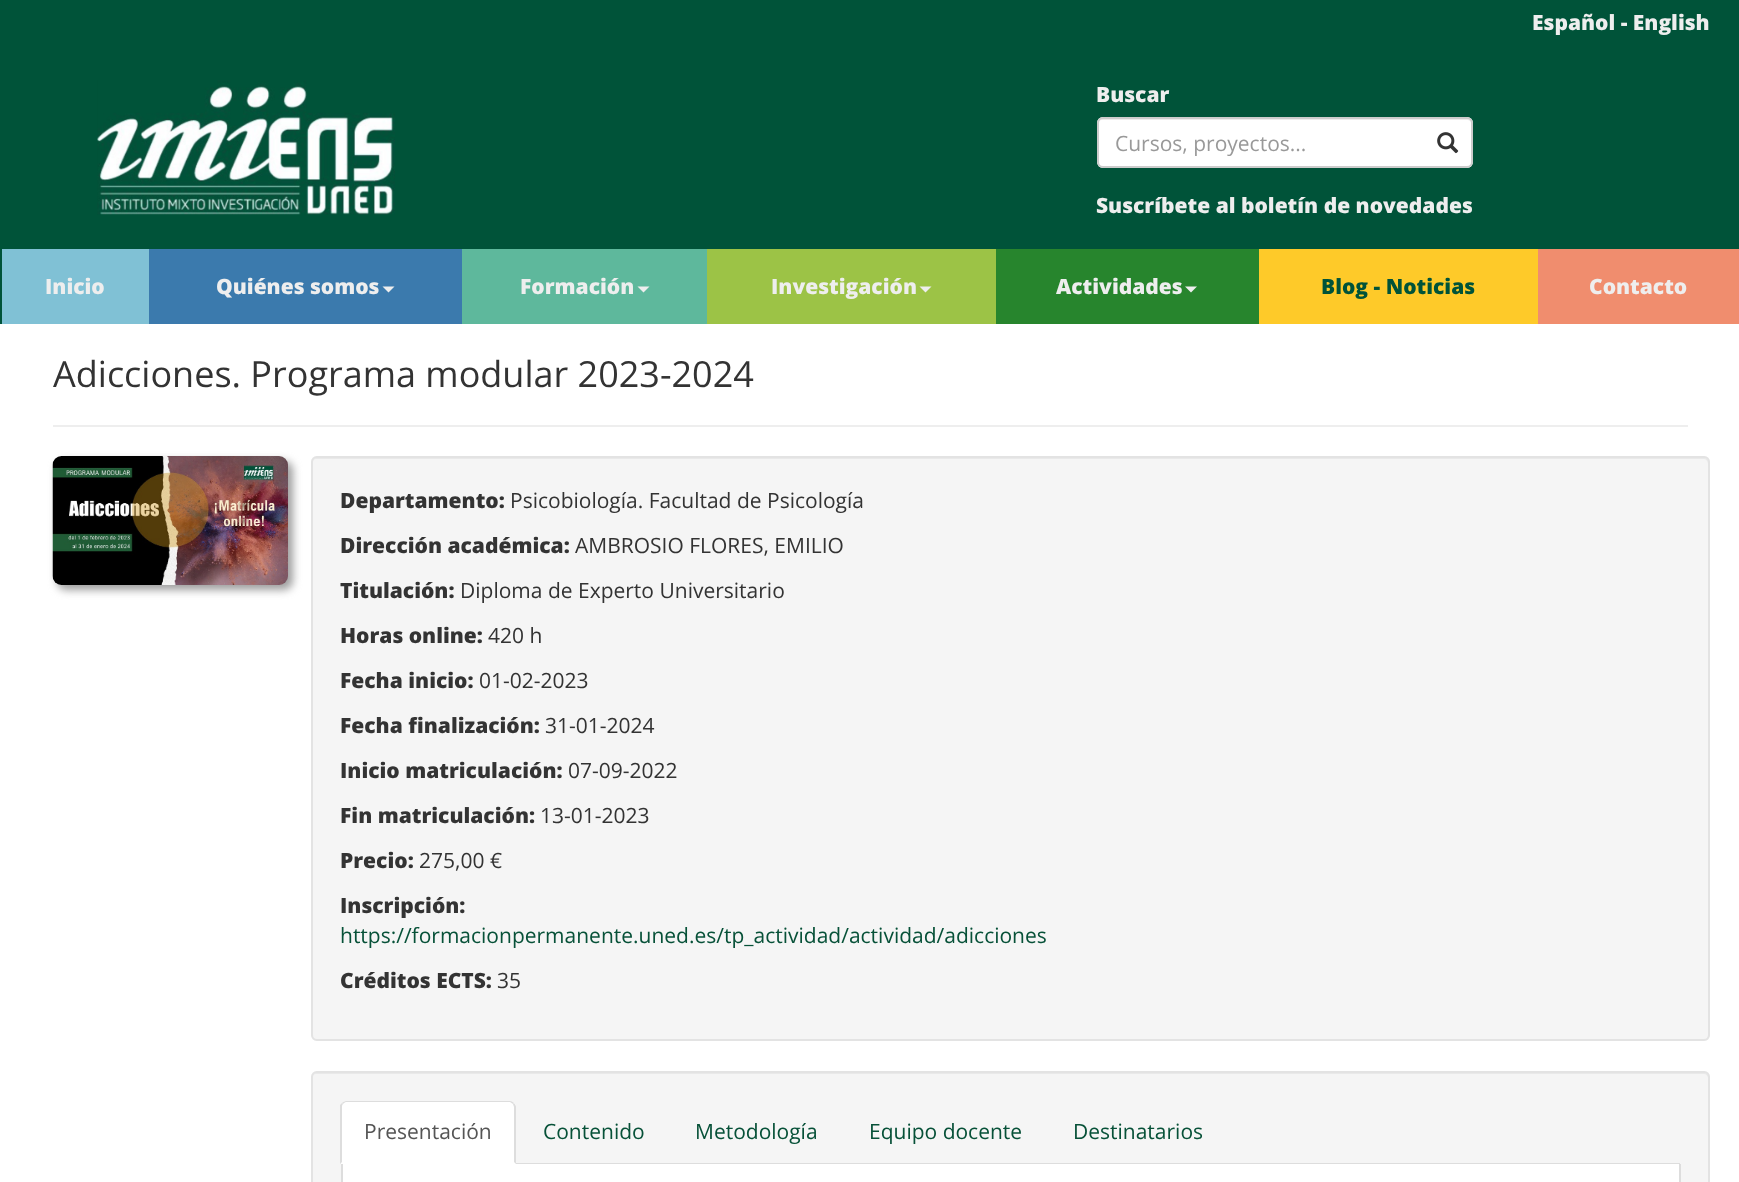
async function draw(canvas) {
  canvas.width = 1739;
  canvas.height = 1182;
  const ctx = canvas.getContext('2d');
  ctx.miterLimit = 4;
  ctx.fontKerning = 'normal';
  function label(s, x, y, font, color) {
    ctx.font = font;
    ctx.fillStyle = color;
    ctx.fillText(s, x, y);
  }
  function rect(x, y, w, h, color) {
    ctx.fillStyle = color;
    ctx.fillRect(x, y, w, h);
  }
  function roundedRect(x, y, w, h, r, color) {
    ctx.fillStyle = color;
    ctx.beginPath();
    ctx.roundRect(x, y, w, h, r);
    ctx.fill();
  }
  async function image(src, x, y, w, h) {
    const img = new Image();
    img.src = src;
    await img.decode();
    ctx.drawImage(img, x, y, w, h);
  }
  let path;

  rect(0, 0, 1739, 1182, '#fff');
  rect(0, 0, 1739, 324, '#005339');
  label('Español - English', 1532, 30, '800 21px Open Sans', '#eee');
  await image('assets/img1.png', 97, 80, 298, 135);
  label('Buscar', 1096, 102, '800 21px Open Sans', '#eee');
  roundedRect(1097, 117, 376, 51, 6, '#fff');
  ctx.fillStyle = '#ececec';
  path = new Path2D('M1102 120H1467C1469 120 1472 122 1472 124C1472 121 1470 119 1467 119H1103C1100 119 1098 121 1098 124C1098 122 1100 120 1102 120Z');
  ctx.fill(path);
  ctx.beginPath();
  ctx.roundRect(1098, 118, 374, 49, 5);
  ctx.strokeStyle = '#ccc';
  ctx.lineWidth = 2;
  ctx.stroke();
  label('Cursos, proyectos...', 1115, 151, '21px Open Sans', '#999');
  await image('assets/img2.png', 1437, 132, 22, 22);
  label('Suscríbete al boletín de novedades', 1096, 213, '800 21px Open Sans', '#eee');
  rect(2, 249, 147, 75, '#80c1d5');
  label('Inicio', 45, 294, '800 21px Open Sans', '#eee');
  rect(149, 249, 313, 75, '#3b7aad');
  label('Quiénes somos', 216, 294, '800 21px Open Sans', '#eee');
  path = new Path2D('M382.5 286.5H394.5L388.5 292.5Z');
  ctx.fill(path);
  rect(462, 249, 245, 75, '#5eb89c');
  label('Formación', 520, 294, '800 21px Open Sans', '#eee');
  path = new Path2D('M637.5 286.5H649.5L643.5 292.5Z');
  ctx.fill(path);
  rect(707, 249, 289, 75, '#9cc346');
  label('Investigación', 771, 294, '800 21px Open Sans', '#eee');
  path = new Path2D('M919.5 286.5H931.5L925.5 292.5Z');
  ctx.fill(path);
  rect(996, 249, 263, 75, '#27852d');
  label('Actividades', 1056, 294, '800 21px Open Sans', '#eee');
  path = new Path2D('M1185 286.5H1197L1191 292.5Z');
  ctx.fill(path);
  rect(1259, 249, 279, 75, '#feca29');
  label('Blog - Noticias', 1321, 294, '800 21px Open Sans', '#005339');
  rect(1538, 249, 201, 75, '#f08d6e');
  label('Contacto', 1589, 294, '800 21px Open Sans', '#eee');
  label('Adicciones. Programa modular 2023-2024', 53, 387, '36px Open Sans', '#333');
  rect(53, 425, 1635, 2, '#eee');
  ctx.fillStyle = '#9e9e9e';
  ctx.filter = 'blur(4px)';
  ctx.beginPath();
  ctx.roundRect(57, 461, 236, 129, 9);
  ctx.fill();
  ctx.filter = 'none';
  await image('assets/img3.png', 52, 456, 236, 129);
  roundedRect(311, 456, 1399, 585, 6, '#f5f5f5');
  ctx.fillStyle = '#e9e9e9';
  path = new Path2D('M316 459H1704C1706 459 1708 461 1708 464V1036L1707 1039C1708 1038 1709 1036 1709 1035V463C1709 460 1707 458 1704 458H317C314 458 312 460 312 463V464C312 461 314 459 316 459Z');
  ctx.fill(path);
  ctx.beginPath();
  ctx.roundRect(312, 457, 1397, 583, 5);
  ctx.strokeStyle = '#e3e3e3';
  ctx.stroke();
  label('Departamento:', 340, 508, '800 21px Open Sans', '#333');
  label('Psicobiología. Facultad de Psicología', 510, 508, '21px Open Sans', '#333');
  label('Dirección académica:', 340, 553, '800 21px Open Sans', '#333');
  label('AMBROSIO FLORES, EMILIO', 575, 553, '21px Open Sans', '#333');
  label('Titulación:', 340, 598, '800 21px Open Sans', '#333');
  label('Diploma de Experto Universitario', 460, 598, '21px Open Sans', '#333');
  label('Horas online:', 340, 643, '800 21px Open Sans', '#333');
  label('420 h', 488, 643, '21px Open Sans', '#333');
  label('Fecha inicio:', 340, 688, '800 21px Open Sans', '#333');
  label('01-02-2023', 479, 688, '21px Open Sans', '#333');
  label('Fecha finalización:', 340, 733, '800 21px Open Sans', '#333');
  label('31-01-2024', 545, 733, '21px Open Sans', '#333');
  label('Inicio matriculación:', 340, 778, '800 21px Open Sans', '#333');
  label('07-09-2022', 568, 778, '21px Open Sans', '#333');
  label('Fin matriculación:', 340, 823, '800 21px Open Sans', '#333');
  label('13-01-2023', 540, 823, '21px Open Sans', '#333');
  label('Precio:', 340, 868, '800 21px Open Sans', '#333');
  label('275,00 €', 419, 868, '21px Open Sans', '#333');
  label('Inscripción:', 340, 913, '800 21px Open Sans', '#333');
  label('https://formacionpermanente.uned.es/tp_actividad/actividad/adicciones', 340, 943, '21px Open Sans', '#075138');
  label('Créditos ECTS:', 340, 988, '800 21px Open Sans', '#333');
  label('35', 497, 988, '21px Open Sans', '#333');
  roundedRect(311, 1071, 1399, 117, 6, '#f5f5f5');
  ctx.fillStyle = '#e9e9e9';
  path = new Path2D('M316 1074H1704C1706 1074 1708 1076 1708 1078V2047C1709 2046 1709 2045 1709 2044V1078C1709 1075 1707 1073 1704 1073H317C314 1073 312 1075 312 1078C312 1076 314 1074 316 1074Z');
  ctx.fill(path);
  ctx.beginPath();
  ctx.roundRect(312, 1072, 1397, 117, 5);
  ctx.stroke();
  rect(516, 1163, 1164, 1, '#ddd');
  ctx.fillStyle = '#fff';
  ctx.beginPath();
  ctx.roundRect(341, 1101, 175, 63, [6, 6, 0, 0]);
  ctx.fill();
  ctx.fillStyle = '#ddd';
  path = new Path2D('M346 1101C345 1101 343 1102 342 1103L343 1104C344 1103 345 1102 346 1102H510L513 1104L514 1103C513 1102 512 1101 510 1101Z');
  ctx.fill(path);
  path = new Path2D('M516 1164V1107C516 1106 515 1104 514 1103L513 1104L514 1107V1162Z');
  ctx.fill(path);
  path = new Path2D('M340 1164V1105L342 1103L343 1104C342 1105 342 1106 342 1107V1162Z');
  ctx.fill(path);
  label('Presentación', 364, 1139, '21px Open Sans', '#555');
  label('Contenido', 543, 1139, '21px Open Sans', '#075138');
  label('Metodología', 695, 1139, '21px Open Sans', '#075138');
  label('Equipo docente', 869, 1139, '21px Open Sans', '#075138');
  label('Destinatarios', 1073, 1139, '21px Open Sans', '#075138');
  rect(343, 1164, 1336, 18, '#fff');
  rect(1679, 1164, 2, 18, '#ddd');
  rect(341, 1164, 2, 18, '#ddd');
}

draw(document.querySelector('canvas'));
